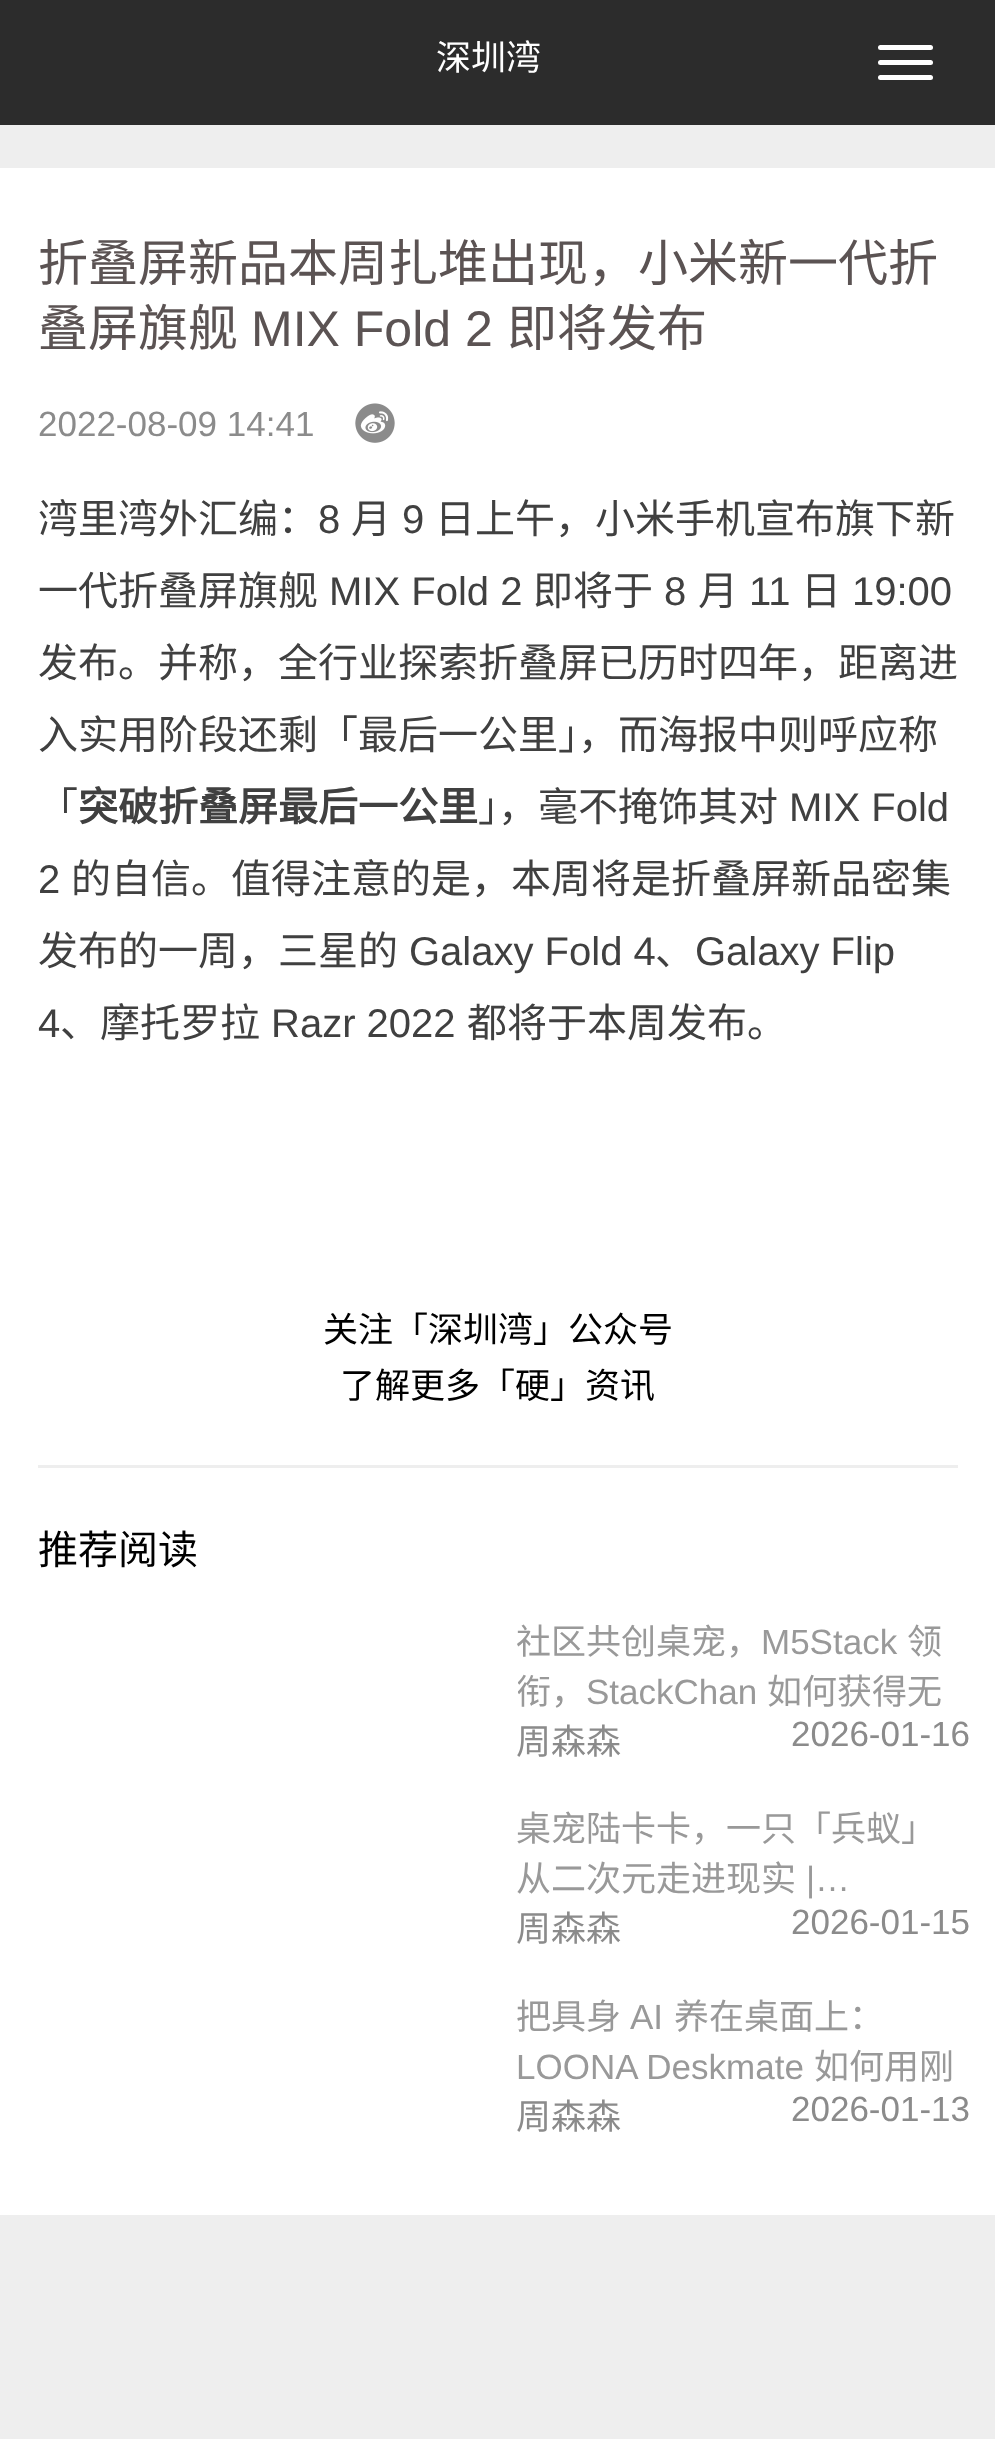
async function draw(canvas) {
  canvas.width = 995;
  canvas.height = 2439;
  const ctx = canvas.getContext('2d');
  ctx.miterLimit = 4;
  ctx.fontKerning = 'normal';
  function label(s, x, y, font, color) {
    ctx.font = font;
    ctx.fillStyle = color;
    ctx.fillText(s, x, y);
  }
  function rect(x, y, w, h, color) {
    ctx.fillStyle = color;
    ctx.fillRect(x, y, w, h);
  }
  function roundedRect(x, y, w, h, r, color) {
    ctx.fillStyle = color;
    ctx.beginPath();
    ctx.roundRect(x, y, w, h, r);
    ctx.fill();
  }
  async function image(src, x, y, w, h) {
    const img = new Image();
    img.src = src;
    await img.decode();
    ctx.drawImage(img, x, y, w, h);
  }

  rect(0, 0, 995, 2439, '#eee');
  rect(0, 0, 995, 125, '#2c2c2c');
  label('深圳湾', 436, 70, '35px Noto Sans CJK SC', '#fff');
  roundedRect(878, 45, 55, 5, 2.5, '#fff');
  roundedRect(878, 60, 55, 5, 2.5, '#fff');
  roundedRect(878, 75, 55, 5, 2.5, '#fff');
  rect(0, 168, 995, 2047, '#fff');
  label('折叠屏新品本周扎堆出现，小米新一代折', 38, 281, '50px Noto Sans CJK SC', '#5b5353');
  label('叠屏旗舰', 38, 346, '50px Noto Sans CJK SC', '#5b5353');
  label('MIX Fold 2', 251, 346, '50px Liberation Sans', '#5b5353');
  label('即将发布', 507, 346, '50px Noto Sans CJK SC', '#5b5353');
  label('2022-08-09 14:41', 38, 436, '35px Liberation Sans', '#8b8b8b');
  await image('assets/img1.png', 355, 403, 40, 40);
  label('湾里湾外汇编：', 38, 533, '40px Noto Sans CJK SC', '#404040');
  label('8', 318, 533, '40px Liberation Sans', '#404040');
  label('月', 351, 533, '40px Noto Sans CJK SC', '#404040');
  label('9', 402, 533, '40px Liberation Sans', '#404040');
  label('日上午，小米手机宣布旗下新', 435, 533, '40px Noto Sans CJK SC', '#404040');
  label('一代折叠屏旗舰', 38, 605, '40px Noto Sans CJK SC', '#404040');
  label('MIX Fold 2', 329, 605, '40px Liberation Sans', '#404040');
  label('即将于', 533, 605, '40px Noto Sans CJK SC', '#404040');
  label('8', 664, 605, '40px Liberation Sans', '#404040');
  label('月', 698, 605, '40px Noto Sans CJK SC', '#404040');
  label('11', 749, 605, '40px Liberation Sans', '#404040');
  label('日', 801, 605, '40px Noto Sans CJK SC', '#404040');
  label('19:00', 852, 605, '40px Liberation Sans', '#404040');
  label('发布。并称，全行业探索折叠屏已历时四年，距离进', 38, 677, '40px Noto Sans CJK SC', '#404040');
  label('入实用阶段还剩「最后一公里」，而海报中则呼应称', 38, 749, '40px Noto Sans CJK SC', '#404040');
  label('「', 38, 821, '40px Noto Sans CJK SC', '#404040');
  label('突破折叠屏最后一公里', 78, 821, 'bold 40px Noto Sans CJK SC', '#404040');
  label('」，毫不掩饰其对', 478, 821, '40px Noto Sans CJK SC', '#404040');
  label('MIX Fold', 789, 821, '40px Liberation Sans', '#404040');
  label('2', 38, 893, '40px Liberation Sans', '#404040');
  label('的自信。值得注意的是，本周将是折叠屏新品密集', 71, 893, '40px Noto Sans CJK SC', '#404040');
  label('发布的一周，三星的', 38, 965, '40px Noto Sans CJK SC', '#404040');
  label('Galaxy Fold 4', 409, 965, '40px Liberation Sans', '#404040');
  label('、', 655, 965, '40px Noto Sans CJK SC', '#404040');
  label('Galaxy Flip', 695, 965, '40px Liberation Sans', '#404040');
  label('4', 38, 1037, '40px Liberation Sans', '#404040');
  label('、摩托罗拉', 60, 1037, '40px Noto Sans CJK SC', '#404040');
  label('Razr 2022', 271, 1037, '40px Liberation Sans', '#404040');
  label('都将于本周发布。', 467, 1037, '40px Noto Sans CJK SC', '#404040');
  label('关注「深圳湾」公众号', 323, 1342, '35px Noto Sans CJK SC', '#000');
  label('了解更多「硬」资讯', 340, 1398, '35px Noto Sans CJK SC', '#000');
  rect(38, 1465, 920, 3, '#eee');
  label('推荐阅读', 38, 1564, '40px Noto Sans CJK SC', '#000');
  label('社区共创桌宠，', 516, 1654, '35px Noto Sans CJK SC', '#999');
  label('M5Stack', 761, 1654, '35px Liberation Sans', '#999');
  label('领', 907, 1654, '35px Noto Sans CJK SC', '#999');
  ctx.save();
  ctx.beginPath();
  ctx.rect(518, 1615, 452, 100);
  ctx.clip();
  label('衔，', 516, 1704, '35px Noto Sans CJK SC', '#999');
  ctx.restore();
  label('StackChan', 586, 1704, '35px Liberation Sans', '#999');
  label('如何获得无', 767, 1704, '35px Noto Sans CJK SC', '#999');
  label('周森森', 516, 1754, '35px Noto Sans CJK SC', '#8b8b8b');
  label('2026-01-16', 791, 1746, '35px Liberation Sans', '#8b8b8b');
  label('桌宠陆卡卡，一只「兵蚁」', 516, 1841, '35px Noto Sans CJK SC', '#999');
  label('从二次元走进现实', 516, 1891, '35px Noto Sans CJK SC', '#999');
  label('|…', 806, 1891, '35px Liberation Sans', '#999');
  label('周森森', 516, 1941, '35px Noto Sans CJK SC', '#8b8b8b');
  label('2026-01-15', 791, 1934, '35px Liberation Sans', '#8b8b8b');
  label('把具身', 516, 2029, '35px Noto Sans CJK SC', '#999');
  label('AI', 630, 2029, '35px Liberation Sans', '#999');
  label('养在桌面上：', 674, 2029, '35px Noto Sans CJK SC', '#999');
  label('LOONA Deskmate', 516, 2079, '35px Liberation Sans', '#999');
  label('如何用刚', 814, 2079, '35px Noto Sans CJK SC', '#999');
  label('周森森', 516, 2129, '35px Noto Sans CJK SC', '#8b8b8b');
  label('2026-01-13', 791, 2121, '35px Liberation Sans', '#8b8b8b');
}

draw(document.querySelector('canvas'));
